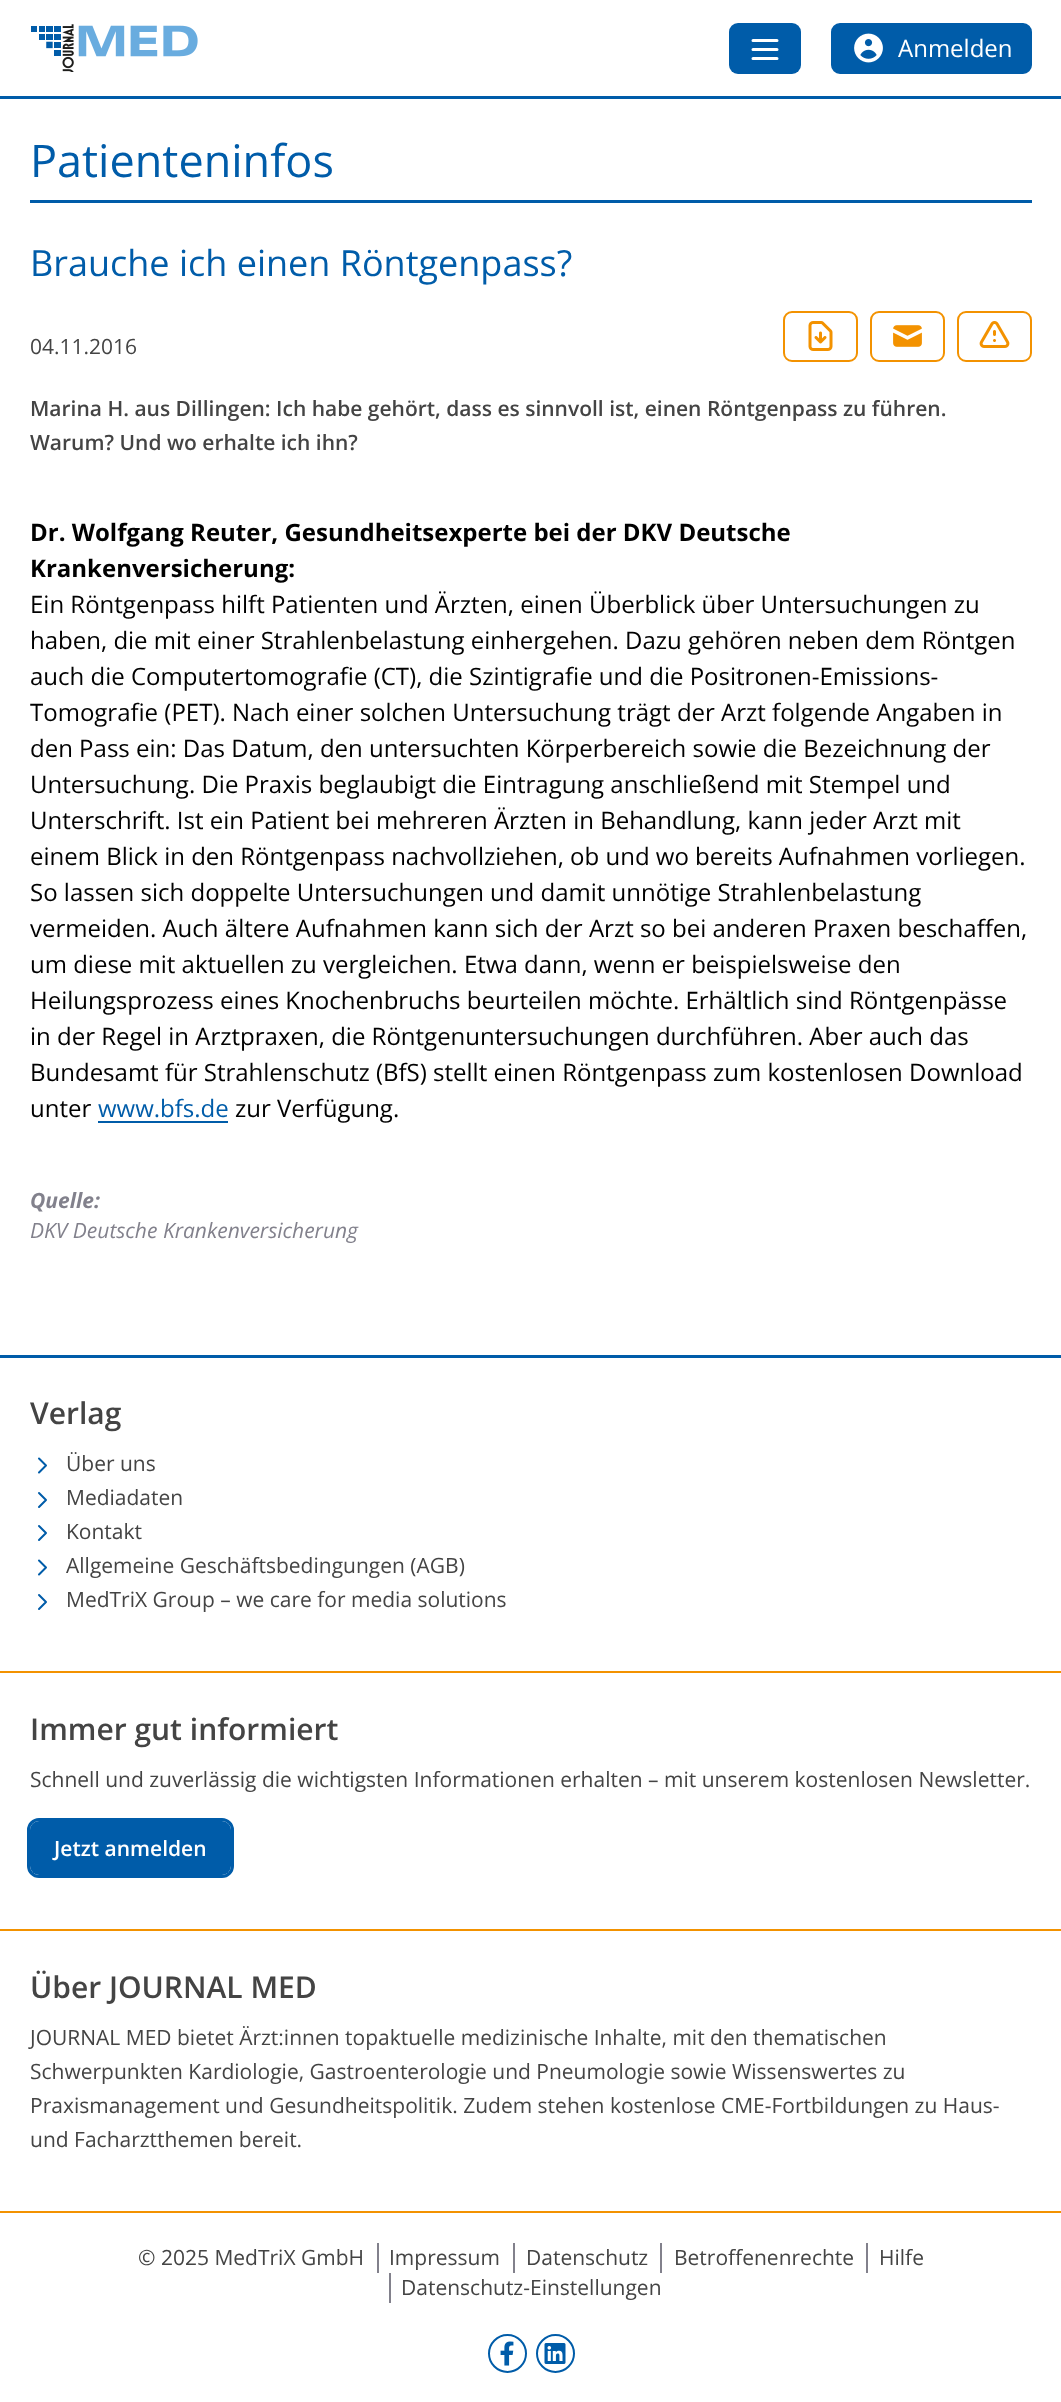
async function draw(canvas) {
  canvas.width = 1061;
  canvas.height = 2402;
  const ctx = canvas.getContext('2d');
  ctx.miterLimit = 4;
  ctx.fontKerning = 'normal';
  function label(s, x, y, font, color) {
    ctx.font = font;
    ctx.fillStyle = color;
    ctx.fillText(s, x, y);
  }
  function rect(x, y, w, h, color) {
    ctx.fillStyle = color;
    ctx.fillRect(x, y, w, h);
  }
  function roundedRect(x, y, w, h, r, color) {
    ctx.fillStyle = color;
    ctx.beginPath();
    ctx.roundRect(x, y, w, h, r);
    ctx.fill();
  }
  async function image(src, x, y, w, h) {
    const img = new Image();
    img.src = src;
    await img.decode();
    ctx.drawImage(img, x, y, w, h);
  }
  let path;

  rect(0, 0, 1061, 2402, '#fff');
  rect(0, 96, 1061, 3, '#005ca9');
  await image('assets/img1.png', 31, 24, 167, 48);
  roundedRect(729, 23, 72, 51, 9, '#005ca9');
  path = new Path2D('M753 40.5H777M753 49.5H777M753 58.5H777');
  ctx.strokeStyle = '#fff';
  ctx.lineWidth = 3;
  ctx.lineCap = 'round';
  ctx.lineJoin = 'round';
  ctx.stroke(path);
  ctx.beginPath();
  ctx.roundRect(832, 24, 199, 49, 8);
  ctx.fill();
  ctx.strokeStyle = '#005ca9';
  ctx.lineWidth = 2;
  ctx.lineJoin = 'miter';
  ctx.stroke();
  await image('assets/img2.png', 854, 33, 29, 30);
  label('Anmelden', 898, 57, '24px Open Sans', '#fff');
  rect(30, 200, 1002, 3, '#005ca9');
  label('Patienteninfos', 30, 177, '45px Open Sans', '#005ca9');
  label('Brauche ich einen Röntgenpass?', 30, 276, '36px Open Sans', '#005ca9');
  label('04.11.2016', 30, 354, '21px Open Sans', '#444');
  ctx.beginPath();
  ctx.roundRect(784, 312, 73, 49, 8);
  ctx.strokeStyle = '#f39200';
  ctx.stroke();
  await image('assets/img3.png', 808, 321, 25, 30);
  ctx.beginPath();
  ctx.roundRect(871, 312, 73, 49, 8);
  ctx.stroke();
  await image('assets/img4.png', 893, 325, 29, 22);
  ctx.beginPath();
  ctx.roundRect(958, 312, 73, 49, 8);
  ctx.stroke();
  await image('assets/img5.png', 979, 321, 31, 27);
  label('Marina H. aus Dillingen: Ich habe gehört, dass es sinnvoll ist, einen Röntgenpass zu führen.', 30, 416, '600 21px Open Sans', '#444');
  label('Warum? Und wo erhalte ich ihn?', 30, 450, '600 21px Open Sans', '#444');
  label('Dr. Wolfgang Reuter, Gesundheitsexperte bei der DKV Deutsche', 30, 541, 'bold 24px Open Sans', '#000');
  label('Krankenversicherung:', 30, 577, 'bold 24px Open Sans', '#000');
  label('Ein Röntgenpass hilft Patienten und Ärzten, einen Überblick über Untersuchungen zu', 30, 613, '24px Open Sans', '#000');
  label('haben, die mit einer Strahlenbelastung einhergehen. Dazu gehören neben dem Röntgen', 30, 649, '24px Open Sans', '#000');
  label('auch die Computertomografie (CT), die Szintigrafie und die Positronen-Emissions-', 30, 685, '24px Open Sans', '#000');
  label('Tomografie (PET). Nach einer solchen Untersuchung trägt der Arzt folgende Angaben in', 30, 721, '24px Open Sans', '#000');
  label('den Pass ein: Das Datum, den untersuchten Körperbereich sowie die Bezeichnung der', 30, 757, '24px Open Sans', '#000');
  label('Untersuchung. Die Praxis beglaubigt die Eintragung anschließend mit Stempel und', 30, 793, '24px Open Sans', '#000');
  label('Unterschrift. Ist ein Patient bei mehreren Ärzten in Behandlung, kann jeder Arzt mit', 30, 829, '24px Open Sans', '#000');
  label('einem Blick in den Röntgenpass nachvollziehen, ob und wo bereits Aufnahmen vorliegen.', 30, 865, '24px Open Sans', '#000');
  label('So lassen sich doppelte Untersuchungen und damit unnötige Strahlenbelastung', 30, 901, '24px Open Sans', '#000');
  label('vermeiden. Auch ältere Aufnahmen kann sich der Arzt so bei anderen Praxen beschaffen,', 30, 937, '24px Open Sans', '#000');
  label('um diese mit aktuellen zu vergleichen. Etwa dann, wenn er beispielsweise den', 30, 973, '24px Open Sans', '#000');
  label('Heilungsprozess eines Knochenbruchs beurteilen möchte. Erhältlich sind Röntgenpässe', 30, 1009, '24px Open Sans', '#000');
  label('in der Regel in Arztpraxen, die Röntgenuntersuchungen durchführen. Aber auch das', 30, 1045, '24px Open Sans', '#000');
  label('Bundesamt für Strahlenschutz (BfS) stellt einen Röntgenpass zum kostenlosen Download', 30, 1081, '24px Open Sans', '#000');
  label('unter', 30, 1117, '24px Open Sans', '#000');
  label('www.bfs.de', 98, 1117, '24px Open Sans', '#005ca9');
  rect(98, 1121, 130, 2, '#005ca9');
  label('zur Verfügung.', 235, 1117, '24px Open Sans', '#000');
  label('Quelle:', 30, 1208, 'italic bold 21px Open Sans', '#82818c');
  label('DKV Deutsche Krankenversicherung', 30, 1238, 'italic 21px Open Sans', '#82818c');
  rect(0, 1355, 1061, 3, '#005ca9');
  rect(0, 2211, 1061, 2, '#f39200');
  label('Verlag', 30, 1424, '600 30px Open Sans', '#444');
  path = new Path2D('M39 1458.5L46 1465.5L39 1472.5M39 1493L46 1500L39 1507');
  ctx.strokeStyle = '#005ca9';
  ctx.lineJoin = 'round';
  ctx.stroke(path);
  label('Über uns', 66, 1471, '21px Open Sans', '#444');
  label('Mediadaten', 66, 1505, '21px Open Sans', '#444');
  path = new Path2D('M39 1526L46 1533L39 1540M39 1560.5L46 1567.5L39 1574.5');
  ctx.stroke(path);
  label('Kontakt', 66, 1539, '21px Open Sans', '#444');
  label('Allgemeine Geschäftsbedingungen (AGB)', 66, 1573, '21px Open Sans', '#444');
  path = new Path2D('M39 1595L46 1602L39 1609');
  ctx.stroke(path);
  label('MedTriX Group – we care for media solutions', 66, 1607, '21px Open Sans', '#444');
  rect(0, 1671, 1061, 2, '#f39200');
  label('Immer gut informiert', 30, 1740, '600 30px Open Sans', '#444');
  label('Schnell und zuverlässig die wichtigsten Informationen erhalten – mit unserem kostenlosen Newsletter.', 30, 1787, '21px Open Sans', '#444');
  ctx.beginPath();
  ctx.roundRect(28.5, 1819.5, 204, 57, 10.5);
  ctx.lineWidth = 3;
  ctx.lineJoin = 'miter';
  ctx.stroke();
  roundedRect(30, 1821, 201, 54, 9, '#005ca9');
  label('Jetzt anmelden', 54, 1856, '600 21px Open Sans', '#fff');
  rect(0, 1929, 1061, 2, '#f39200');
  label('Über JOURNAL MED', 30, 1998, '600 30px Open Sans', '#444');
  label('JOURNAL MED bietet Ärzt:innen topaktuelle medizinische Inhalte, mit den thematischen', 30, 2045, '21px Open Sans', '#444');
  label('Schwerpunkten Kardiologie, Gastroenterologie und Pneumologie sowie Wissenswertes zu', 30, 2079, '21px Open Sans', '#444');
  label('Praxismanagement und Gesundheitspolitik. Zudem stehen kostenlose CME-Fortbildungen zu Haus-', 30, 2113, '21px Open Sans', '#444');
  label('und Facharztthemen bereit.', 30, 2147, '21px Open Sans', '#444');
  label('© 2025 MedTriX GmbH', 138, 2265, '21px Open Sans', '#444');
  rect(377, 2243, 2, 30, '#82818c');
  label('Impressum', 389, 2265, '21px Open Sans', '#444');
  rect(513, 2243, 2, 30, '#82818c');
  label('Datenschutz', 526, 2265, '21px Open Sans', '#444');
  rect(660, 2243, 2, 30, '#82818c');
  label('Betroffenenrechte', 674, 2265, '21px Open Sans', '#444');
  rect(866, 2243, 2, 30, '#82818c');
  label('Hilfe', 879, 2265, '21px Open Sans', '#444');
  rect(389, 2273, 2, 30, '#82818c');
  label('Datenschutz-Einstellungen', 401, 2295, '21px Open Sans', '#444');
  ctx.beginPath();
  ctx.arc(507.5, 2353.5, 18.5, 0, 2 * Math.PI);
  ctx.lineWidth = 2;
  ctx.stroke();
  await image('assets/img6.png', 500, 2341, 14, 25);
  ctx.beginPath();
  ctx.arc(555.5, 2353.5, 18.5, 0, 2 * Math.PI);
  ctx.stroke();
  await image('assets/img7.png', 544, 2343, 22, 21);
}

draw(document.querySelector('canvas'));
